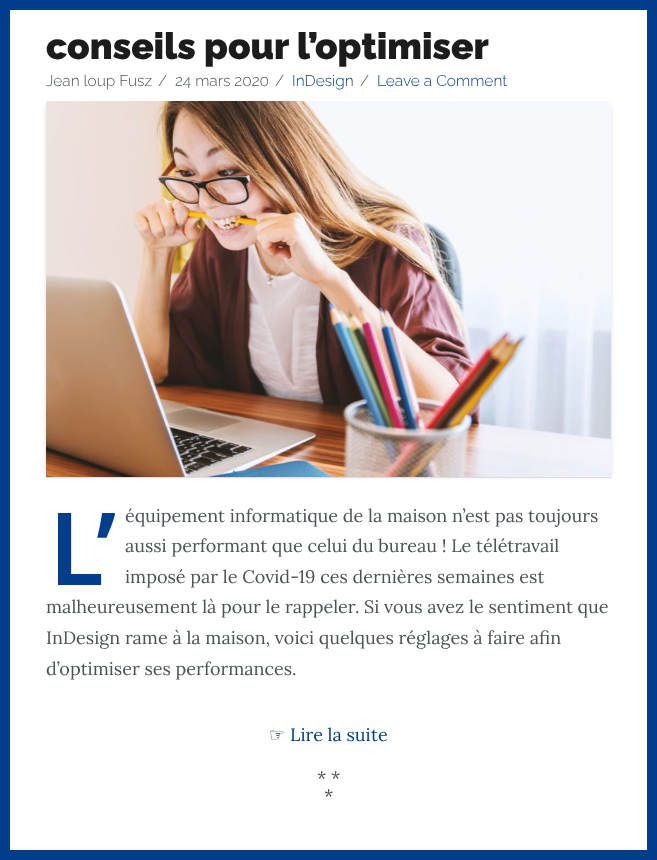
async function draw(canvas) {
  canvas.width = 657;
  canvas.height = 860;
  const ctx = canvas.getContext('2d');
  ctx.miterLimit = 4;
  ctx.fontKerning = 'normal';
  function label(s, x, y, font, color) {
    ctx.font = font;
    ctx.fillStyle = color;
    ctx.fillText(s, x, y);
  }
  function rect(x, y, w, h, color) {
    ctx.fillStyle = color;
    ctx.fillRect(x, y, w, h);
  }
  async function image(src, x, y, w, h) {
    const img = new Image();
    img.src = src;
    await img.decode();
    ctx.drawImage(img, x, y, w, h);
  }

  rect(0, 0, 657, 860, '#fff');
  rect(647, 10, 10, 840, '#033e8c');
  rect(0, 10, 10, 840, '#033e8c');
  rect(0, 0, 657, 10, '#033e8c');
  label('conseils pour l’optimiser', 46, 59, '900 36.9px Raleway', '#1c1c1c');
  label('Jean loup Fusz', 46, 86, '300 15.5px Raleway', '#4c5357');
  label('/', 158, 86, '300 15.5px Raleway', '#4c5357');
  label('24 mars 2020', 175, 86, '300 15.5px Raleway', '#4c5357');
  label('/', 275, 86, '300 15.5px Raleway', '#4c5357');
  label('InDesign', 292, 86, '300 15.5px Raleway', '#033e8c');
  label('/', 360, 86, '300 15.5px Raleway', '#4c5357');
  label('Leave a Comment', 377, 86, '300 15.5px Raleway', '#033e8c');
  ctx.fillStyle = '#00000021';
  ctx.filter = 'blur(2px)';
  ctx.beginPath();
  ctx.rect(46, 107, 557, 369);
  ctx.fill();
  ctx.filter = 'none';
  ctx.filter = 'blur(2px)';
  ctx.beginPath();
  ctx.rect(54, 107, 557, 369);
  ctx.fill();
  ctx.filter = 'none';
  rect(46, 477, 565, 1, '#ddd');
  await image('assets/img1.png', 46, 101, 565, 376);
  label('L’', 49, 585, '600 101px Noto Sans', '#033e8c');
  label('équipement informatique de la maison n’est pas toujours', 125, 522, '18px Lora', '#4c5357');
  label('aussi performant que celui du bureau ! Le télétravail', 125, 552, '18px Lora', '#4c5357');
  label('imposé par le Covid-19 ces dernières semaines est', 125, 583, '18px Lora', '#4c5357');
  label('malheureusement là pour le rappeler. Si vous avez le sentiment que', 46, 613, '18px Lora', '#4c5357');
  label('InDesign rame à la maison, voici quelques réglages à faire afin', 46, 644, '18px Lora', '#4c5357');
  label('d’optimiser ses performances.', 46, 675, '18px Lora', '#4c5357');
  label('☞', 269, 741, '18px DejaVu Sans', '#033e8c');
  label('Lire la suite', 290, 741, '18px Lora', '#033e8c');
  label('* *', 317, 784, '18px Lora', '#4c5357');
  label('*', 324, 802, '18px Lora', '#4c5357');
  rect(0, 850, 657, 10, '#033e8c');
}

draw(document.querySelector('canvas'));
